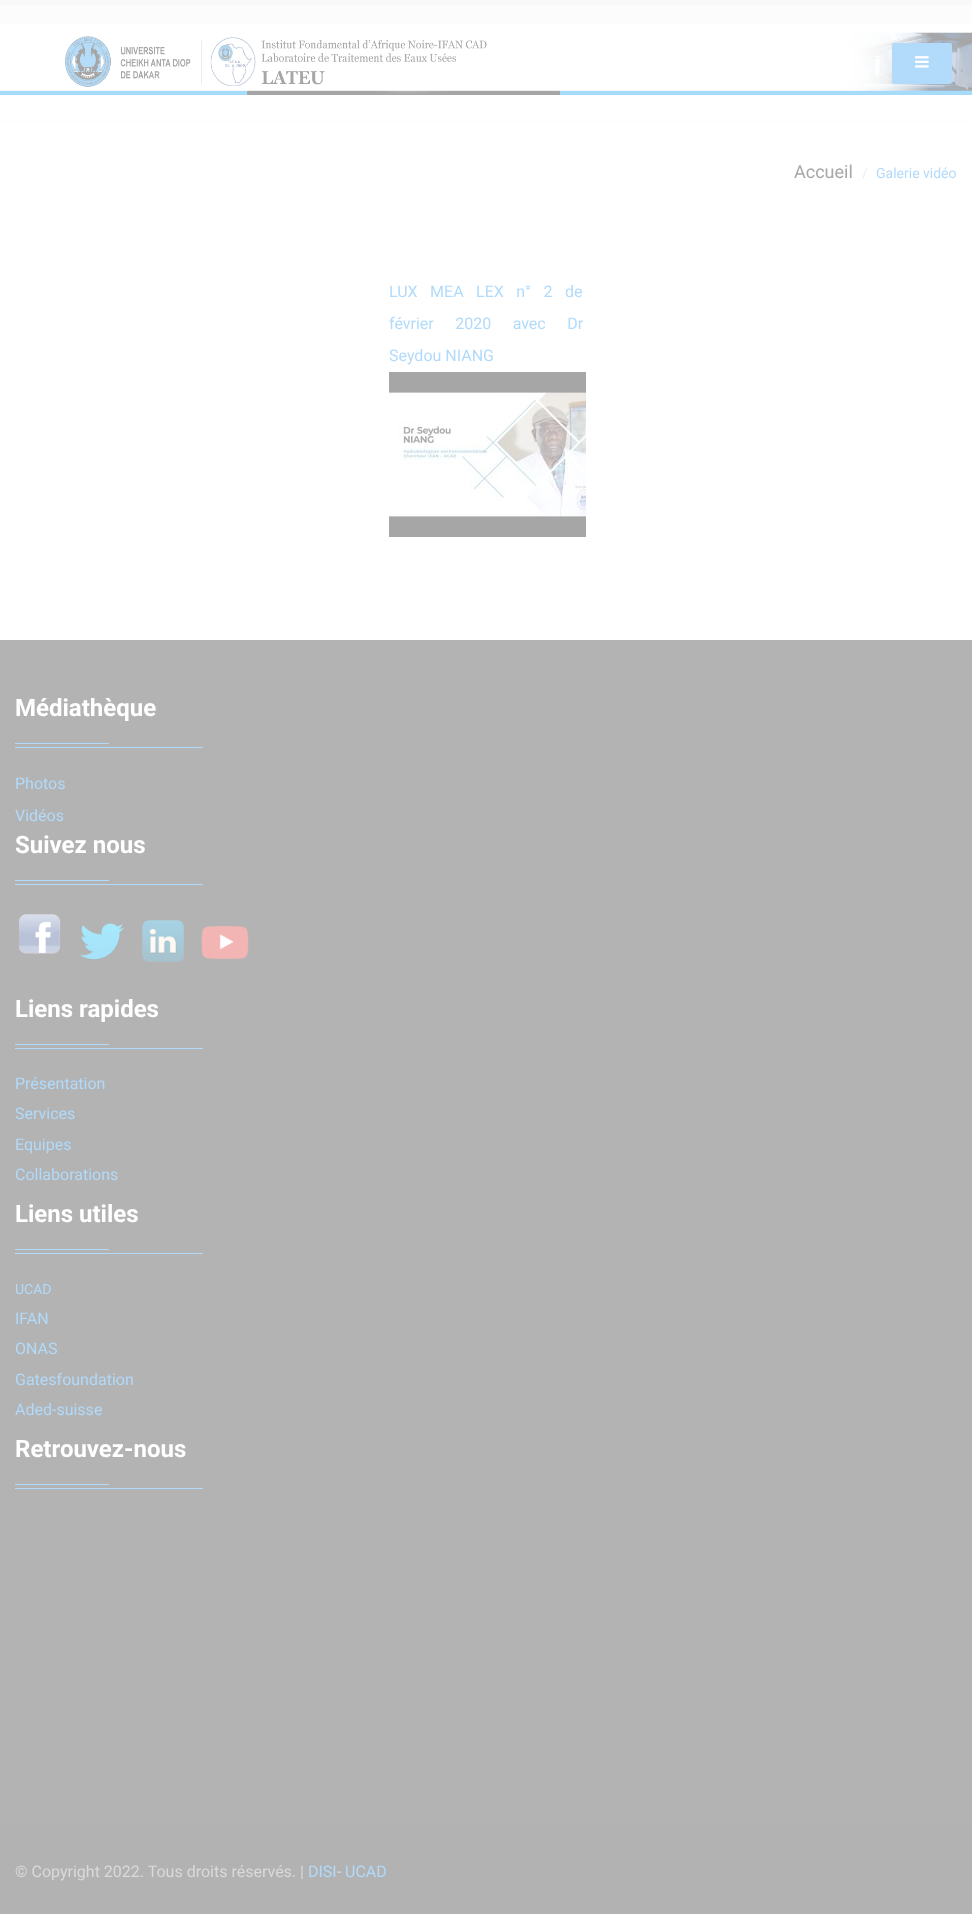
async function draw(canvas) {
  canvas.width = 972;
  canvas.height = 1914;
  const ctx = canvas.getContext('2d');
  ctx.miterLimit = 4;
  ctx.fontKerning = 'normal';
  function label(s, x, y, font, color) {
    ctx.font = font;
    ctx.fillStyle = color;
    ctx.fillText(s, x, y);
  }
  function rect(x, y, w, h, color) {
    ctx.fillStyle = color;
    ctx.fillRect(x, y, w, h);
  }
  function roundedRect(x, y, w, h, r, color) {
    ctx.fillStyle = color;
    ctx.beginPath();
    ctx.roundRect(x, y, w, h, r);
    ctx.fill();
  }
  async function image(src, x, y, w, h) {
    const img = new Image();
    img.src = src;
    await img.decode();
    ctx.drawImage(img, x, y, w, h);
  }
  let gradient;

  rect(0, 0, 972, 1914, '#fff');
  gradient = ctx.createLinearGradient(486, 5, 486, 121);
  gradient.addColorStop(0, '#fcfcfc');
  gradient.addColorStop(1, '#fff');
  ctx.fillStyle = gradient;
  ctx.fillRect(0, 5, 972, 19);
  rect(0, 0, 972, 5, '#f9f9f9');
  rect(0, 121, 972, 1, '#fbfbfb');
  await image('assets/img1.png', 0, 32, 972, 63);
  ctx.fillStyle = '#a6a6a624';
  ctx.filter = 'blur(2px)';
  ctx.beginPath();
  ctx.roundRect(892, 44, 60, 41, 2);
  ctx.fill();
  ctx.filter = 'none';
  roundedRect(892, 43, 60, 41, 2, '#b1dafb');
  await image('assets/img2.png', 915, 56, 14, 12);
  label('Accueil', 794, 178, '18px Roboto', '#a9a6a6');
  label('/', 862, 178, '14px Roboto', '#ededed');
  label('Galerie vidéo', 876, 178, '14px Roboto', '#b1dafb');
  ctx.wordSpacing = '8.5px';
  label('LUX MEA LEX n° 2 de', 389, 297, '16px Roboto', '#b1dafb');
  ctx.wordSpacing = '17.5px';
  label('février 2020 avec Dr', 389, 329, '16px Roboto', '#b1dafb');
  ctx.wordSpacing = '0px';
  label('Seydou NIANG', 389, 361, '16px Roboto', '#b1dafb');
  await image('assets/img3.png', 389, 372, 197, 165);
  rect(0, 640, 972, 1185, '#b3b3b3');
  label('Médiathèque', 15, 716, 'bold 24px Roboto', '#fff');
  rect(15, 747, 188, 1, '#b1dafb');
  rect(15, 743, 94, 1, '#b1dafb');
  label('Photos', 15, 789, '16px Roboto', '#b1dafb');
  label('Vidéos', 15, 821, '16px Roboto', '#b1dafb');
  label('Suivez nous', 15, 853, 'bold 24px Roboto', '#fff');
  rect(15, 884, 188, 1, '#b1dafb');
  rect(15, 880, 94, 1, '#b1dafb');
  await image('assets/img4.png', 18, 914, 43, 40);
  await image('assets/img5.png', 80, 923, 44, 38);
  await image('assets/img6.png', 142, 920, 42, 42);
  await image('assets/img7.png', 201, 926, 48, 33);
  label('Liens rapides', 15, 1017, 'bold 24px Roboto', '#fff');
  rect(15, 1048, 188, 1, '#b1dafb');
  rect(15, 1044, 94, 1, '#b1dafb');
  label('Présentation', 15, 1089, '16px Roboto', '#b1dafb');
  label('Services', 15, 1119, '16px Roboto', '#b1dafb');
  label('Equipes', 15, 1150, '16px Roboto', '#b1dafb');
  label('Collaborations', 15, 1180, '16px Roboto', '#b1dafb');
  label('Liens utiles', 15, 1222, 'bold 24px Roboto', '#fff');
  rect(15, 1253, 188, 1, '#b1dafb');
  rect(15, 1249, 94, 1, '#b1dafb');
  label('UCAD', 15, 1294, '14px Roboto', '#b1dafb');
  label('IFAN', 15, 1324, '16px Roboto', '#b1dafb');
  label('ONAS', 15, 1354, '16px Roboto', '#b1dafb');
  label('Gatesfoundation', 15, 1385, '16px Roboto', '#b1dafb');
  label('Aded-suisse', 15, 1415, '16px Roboto', '#b1dafb');
  label('Retrouvez-nous', 15, 1457, 'bold 24px Roboto', '#fff');
  rect(15, 1488, 188, 1, '#b1dafb');
  rect(15, 1484, 94, 1, '#b1dafb');
  rect(0, 1825, 972, 89, '#b2b2b2');
  label('© Copyright 2022. Tous droits réservés. |', 15, 1877, '16px Roboto', '#dadada');
  label('DISI', 308, 1877, '16px Roboto', '#b1dafb');
  label('-', 337, 1877, '16px Roboto', '#dadada');
  label('UCAD', 345, 1877, '16px Roboto', '#b1dafb');
}

draw(document.querySelector('canvas'));
